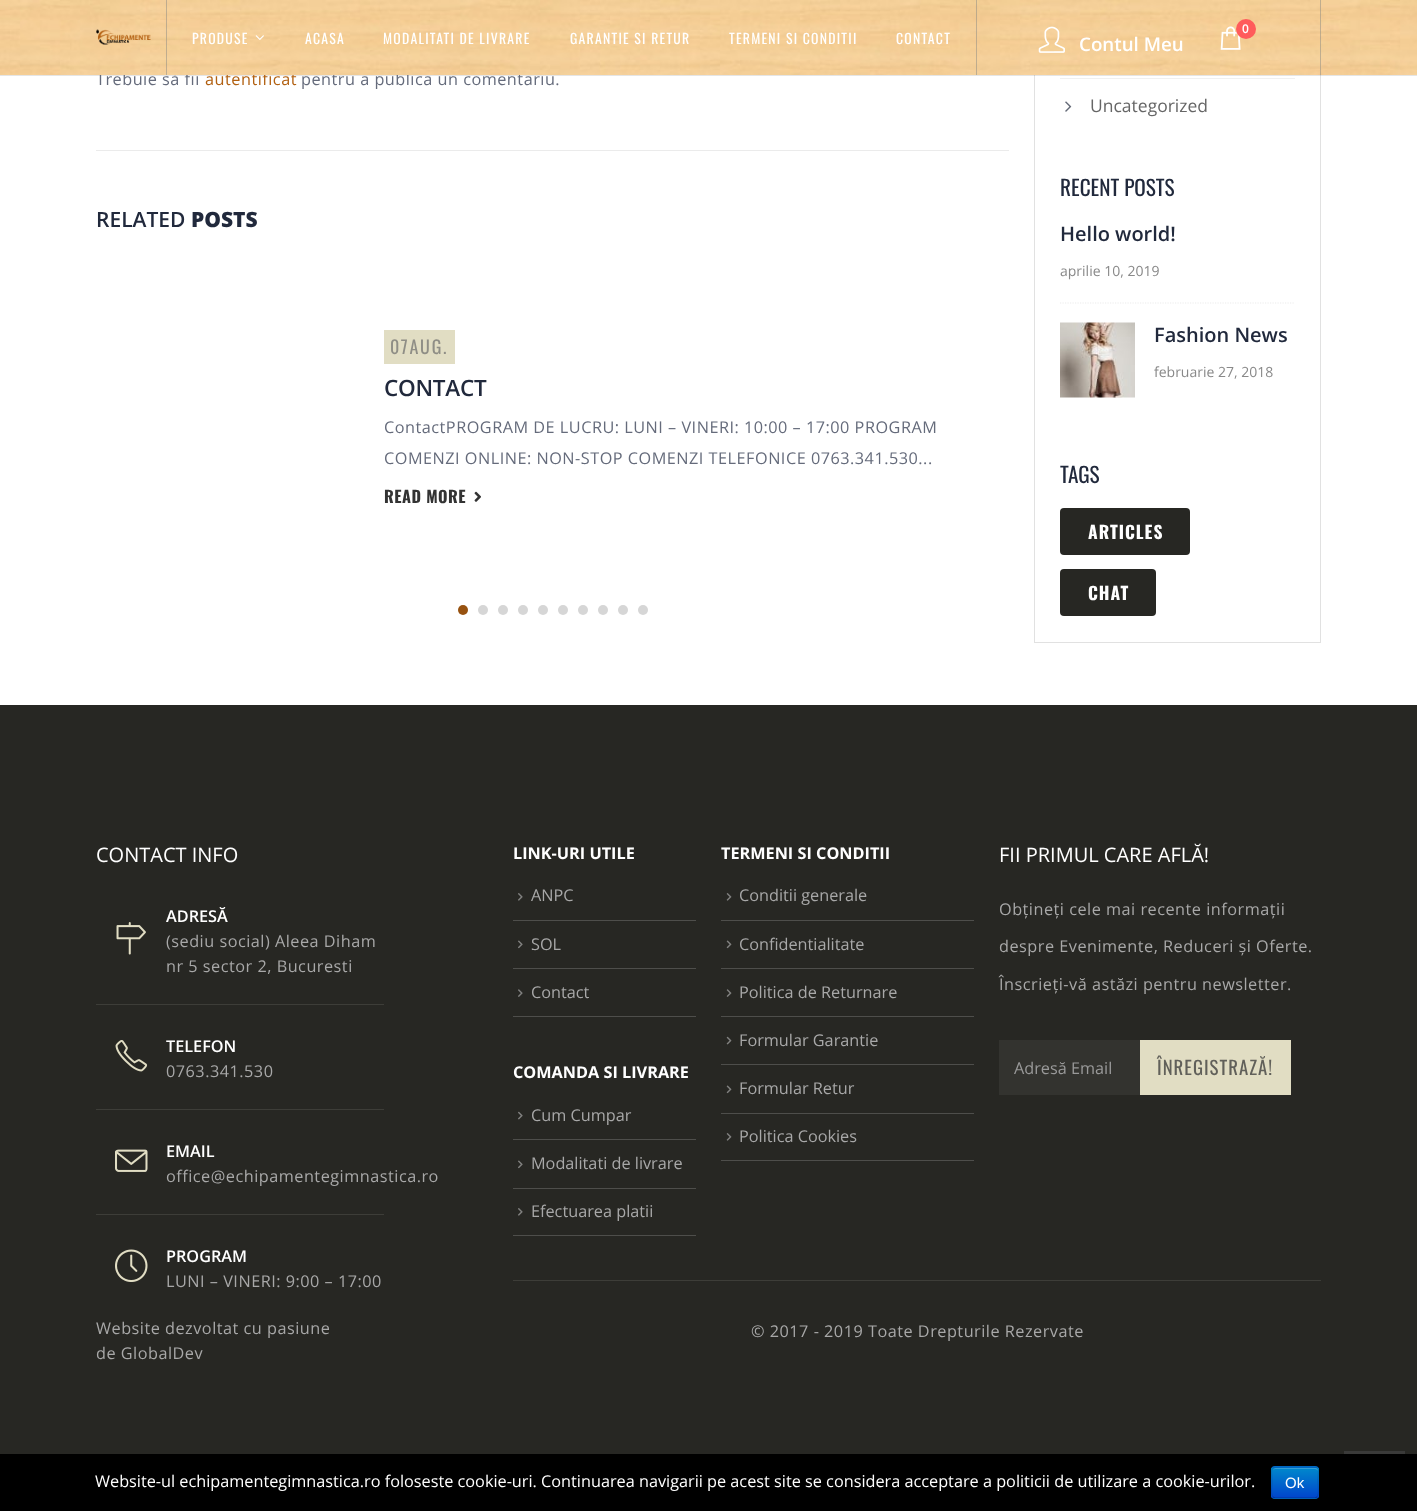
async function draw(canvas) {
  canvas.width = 1417;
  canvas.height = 1511;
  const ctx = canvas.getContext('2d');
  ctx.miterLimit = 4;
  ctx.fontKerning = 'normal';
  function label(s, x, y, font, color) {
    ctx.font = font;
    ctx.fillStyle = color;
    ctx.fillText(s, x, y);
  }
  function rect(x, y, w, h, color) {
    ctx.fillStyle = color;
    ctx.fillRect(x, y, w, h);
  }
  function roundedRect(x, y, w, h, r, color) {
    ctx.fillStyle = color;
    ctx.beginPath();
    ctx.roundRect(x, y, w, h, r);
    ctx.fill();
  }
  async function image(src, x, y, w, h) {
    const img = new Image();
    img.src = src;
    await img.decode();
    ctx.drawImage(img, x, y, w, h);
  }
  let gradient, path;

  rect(0, 0, 1417, 1511, '#fff');
  ctx.strokeStyle = '#e1e1e1';
  ctx.strokeRect(1034.5, -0.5, 286, 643);
  ctx.fillStyle = '#0000001a';
  path = new Path2D('M0 75V76H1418V1V75Z');
  ctx.fill(path);
  ctx.letterSpacing = '0.5px';
  label('Trebuie să fii', 96, 85, '16.25px Open Sans', '#656b7b');
  label('autentificat', 205, 85, '16.25px Open Sans', '#b26112');
  label('pentru a publica un comentariu.', 301, 85, '16.25px Open Sans', '#656b7b');
  await image('assets/img1.png', 0, 0, 1417, 75);
  rect(166, 0, 1, 75, '#8a898480');
  await image('assets/img2.png', 96, 29, 55, 16);
  rect(976, 0, 1, 75, '#8a898480');
  ctx.letterSpacing = '1.25px';
  label('PRODUSE', 192, 44, '13.75px Oswald', '#fff');
  await image('assets/img3.png', 255, 35, 9, 5);
  label('ACASA', 305, 44, '13.75px Oswald', '#fff');
  label('MODALITATI DE LIVRARE', 383, 44, '13.75px Oswald', '#fff');
  label('GARANTIE SI RETUR', 570, 44, '13.75px Oswald', '#fff');
  label('TERMENI SI CONDITII', 729, 44, '13.75px Oswald', '#fff');
  label('CONTACT', 896, 44, '13.75px Oswald', '#fff');
  rect(1320, 0, 1, 75, '#8a898480');
  await image('assets/img4.png', 1220, 26, 21, 24);
  ctx.fillStyle = '#ff5b5b';
  ctx.beginPath();
  ctx.arc(1246, 29, 10, 0, 2 * Math.PI);
  ctx.fill();
  ctx.letterSpacing = '0px';
  label('0', 1242, 33, '600 12px Open Sans', '#fff');
  await image('assets/img5.png', 1038, 26, 27, 27);
  label('Contul Meu', 1079, 51, '600 18.75px Open Sans', '#fff');
  rect(96, 150, 913, 1, '#ebebeb');
  label('RELATED', 96, 227, '600 21px Open Sans', '#21293c');
  label('POSTS', 191, 227, '800 21px Open Sans', '#21293c');
  rect(384, 330, 71, 34, '#e1ddc3');
  ctx.letterSpacing = '1.75px';
  label('07AUG.', 390, 354, '18px Oswald', '#8f8e86');
  ctx.letterSpacing = '-0.25px';
  label('CONTACT', 384, 396, '600 22.5px Open Sans', '#21293c');
  ctx.letterSpacing = '0.5px';
  label('ContactPROGRAM DE LUCRU: LUNI – VINERI: 10:00 – 17:00 PROGRAM', 384, 433, '16.25px Open Sans', '#656b7b');
  label('COMENZI ONLINE: NON-STOP COMENZI TELEFONICE 0763.341.530...', 384, 464, '16.25px Open Sans', '#656b7b');
  label('READ MORE', 384, 503, 'bold 16.25px Oswald', '#333');
  await image('assets/img6.png', 474, 491, 7, 11);
  ctx.fillStyle = '#975210';
  ctx.beginPath();
  ctx.arc(463, 610, 5, 0, 2 * Math.PI);
  ctx.fill();
  ctx.fillStyle = '#d6d6d6';
  ctx.beginPath();
  ctx.arc(483, 610, 5, 0, 2 * Math.PI);
  ctx.fill();
  ctx.beginPath();
  ctx.arc(503, 610, 5, 0, 2 * Math.PI);
  ctx.fill();
  ctx.beginPath();
  ctx.arc(523, 610, 5, 0, 2 * Math.PI);
  ctx.fill();
  ctx.beginPath();
  ctx.arc(543, 610, 5, 0, 2 * Math.PI);
  ctx.fill();
  ctx.beginPath();
  ctx.arc(563, 610, 5, 0, 2 * Math.PI);
  ctx.fill();
  ctx.beginPath();
  ctx.arc(583, 610, 5, 0, 2 * Math.PI);
  ctx.fill();
  ctx.beginPath();
  ctx.arc(603, 610, 5, 0, 2 * Math.PI);
  ctx.fill();
  ctx.beginPath();
  ctx.arc(623, 610, 5, 0, 2 * Math.PI);
  ctx.fill();
  ctx.beginPath();
  ctx.arc(643, 610, 5, 0, 2 * Math.PI);
  ctx.fill();
  rect(1060, 78, 235, 1, '#f0f0f0');
  await image('assets/img7.png', 1065, 101, 7, 11);
  ctx.letterSpacing = '0px';
  label('Uncategorized', 1090, 112, '17.5px Open Sans', '#666');
  label('RECENT POSTS', 1060, 196, '21.25px Oswald', '#21293c');
  label('Hello world!', 1060, 241, '600 20px Open Sans', '#21293c');
  label('aprilie 10, 2019', 1060, 276, '14px Open Sans', '#898989');
  path = new Path2D('M1060 303H1295');
  ctx.strokeStyle = '#ececec';
  ctx.lineWidth = 1.2;
  ctx.setLineDash([1.25, 1.25]);
  ctx.stroke(path);
  await image('assets/img8.png', 1060, 322, 75, 76);
  label('Fashion News', 1154, 342, '600 20px Open Sans', '#21293c');
  label('februarie 27, 2018', 1154, 377, '14px Open Sans', '#898989');
  label('TAGS', 1060, 483, '21.25px Oswald', '#21293c');
  roundedRect(1060, 508, 130, 47, 4, '#272723');
  ctx.letterSpacing = '1px';
  label('ARTICLES', 1088, 539, 'bold 17.5px Oswald', '#fff');
  roundedRect(1060, 569, 96, 47, 4, '#272723');
  label('CHAT', 1088, 600, 'bold 17.5px Oswald', '#fff');
  rect(0, 705, 1417, 749, '#272723');
  ctx.letterSpacing = '0px';
  label('CONTACT INFO', 96, 862, '20px Open Sans', '#fff');
  rect(96, 1004, 288, 1, '#3d3d38');
  await image('assets/img9.png', 116, 922, 30, 33);
  label('ADRESĂ', 166, 922, '600 16.25px Open Sans', '#fff');
  ctx.letterSpacing = '0.5px';
  label('(sediu social) Aleea Diham', 166, 947, '16.25px Open Sans', '#a8a8a8');
  label('nr 5 sector 2, Bucuresti', 166, 972, '16.25px Open Sans', '#a8a8a8');
  rect(96, 1109, 288, 1, '#3d3d38');
  await image('assets/img10.png', 115, 1040, 33, 32);
  ctx.letterSpacing = '0px';
  label('TELEFON', 166, 1052, '600 16.25px Open Sans', '#fff');
  ctx.letterSpacing = '0.5px';
  label('0763.341.530', 166, 1077, '16.25px Open Sans', '#a8a8a8');
  rect(96, 1214, 288, 1, '#3d3d38');
  await image('assets/img11.png', 115, 1149, 33, 23);
  ctx.letterSpacing = '0px';
  label('EMAIL', 166, 1157, '600 16.25px Open Sans', '#fff');
  ctx.letterSpacing = '0.5px';
  label('office@echipamentegimnastica.ro', 166, 1182, '16.25px Open Sans', '#a8a8a8');
  await image('assets/img12.png', 115, 1249, 33, 33);
  ctx.letterSpacing = '0px';
  label('PROGRAM', 166, 1262, '600 16.25px Open Sans', '#fff');
  ctx.letterSpacing = '0.5px';
  label('LUNI – VINERI: 9:00 – 17:00', 166, 1287, '16.25px Open Sans', '#a8a8a8');
  label('Website dezvoltat cu pasiune', 96, 1334, '16.25px Open Sans', '#a8a8a8');
  label('de GlobalDev', 96, 1359, '16.25px Open Sans', '#a8a8a8');
  ctx.letterSpacing = '0px';
  label('LINK-URI UTILE', 513, 859, 'bold 16.25px Open Sans', '#fff');
  rect(513, 1016, 183, 1, '#4e4e4b');
  await image('assets/img13.png', 518, 893, 5, 8);
  label('ANPC', 531, 901, '16.25px Open Sans', '#a8a8a8');
  rect(513, 920, 183, 1, '#4e4e4b');
  await image('assets/img14.png', 518, 940, 5, 9);
  label('SOL', 531, 950, '16.25px Open Sans', '#a8a8a8');
  rect(513, 968, 183, 1, '#4e4e4b');
  await image('assets/img15.png', 518, 989, 5, 8);
  label('Contact', 531, 998, '16.25px Open Sans', '#a8a8a8');
  label('COMANDA SI LIVRARE', 513, 1078, 'bold 16.25px Open Sans', '#fff');
  rect(513, 1235, 183, 1, '#4e4e4b');
  await image('assets/img16.png', 518, 1111, 5, 9);
  label('Cum Cumpar', 531, 1121, '16.25px Open Sans', '#a8a8a8');
  rect(513, 1139, 183, 1, '#4e4e4b');
  await image('assets/img14.png', 518, 1160, 5, 9);
  label('Modalitati de livrare', 531, 1169, '16.25px Open Sans', '#a8a8a8');
  rect(513, 1188, 183, 1, '#4e4e4b');
  await image('assets/img13.png', 518, 1208, 5, 8);
  label('Efectuarea platii', 531, 1217, '16.25px Open Sans', '#a8a8a8');
  label('TERMENI SI CONDITII', 721, 859, 'bold 16.25px Open Sans', '#fff');
  rect(721, 1160, 253, 1, '#4e4e4b');
  await image('assets/img17.png', 726, 893, 6, 8);
  label('Conditii generale', 739, 901, '16.25px Open Sans', '#a8a8a8');
  rect(721, 920, 253, 1, '#4e4e4b');
  await image('assets/img18.png', 726, 940, 6, 9);
  label('Confidentialitate', 739, 950, '16.25px Open Sans', '#a8a8a8');
  rect(721, 968, 253, 1, '#4e4e4b');
  await image('assets/img19.png', 726, 989, 6, 8);
  label('Politica de Returnare', 739, 998, '16.25px Open Sans', '#a8a8a8');
  rect(721, 1016, 253, 1, '#4e4e4b');
  await image('assets/img20.png', 726, 1036, 6, 9);
  label('Formular Garantie', 739, 1046, '16.25px Open Sans', '#a8a8a8');
  rect(721, 1064, 253, 1, '#4e4e4b');
  await image('assets/img18.png', 726, 1085, 6, 9);
  label('Formular Retur', 739, 1094, '16.25px Open Sans', '#a8a8a8');
  rect(721, 1113, 253, 1, '#4e4e4b');
  await image('assets/img17.png', 726, 1133, 6, 8);
  label('Politica Cookies', 739, 1142, '16.25px Open Sans', '#a8a8a8');
  label('FII PRIMUL CARE AFLĂ!', 999, 862, '20px Open Sans', '#fff');
  ctx.letterSpacing = '0.5px';
  label('Obțineți cele mai recente informații', 999, 915, '16.25px Open Sans', '#a8a8a8');
  label('despre Evenimente, Reduceri și Oferte.', 999, 952, '16.25px Open Sans', '#a8a8a8');
  label('Înscrieți-vă astăzi pentru newsletter.', 999, 990, '16.25px Open Sans', '#a8a8a8');
  rect(999, 1040, 141, 55, '#33332f');
  ctx.letterSpacing = '0px';
  label('Adresă Email', 1014, 1074, '16.25px Open Sans', '#999');
  rect(1140, 1040, 151, 55, '#e1ddc3');
  ctx.letterSpacing = '1px';
  label('ÎNREGISTRAZĂ!', 1157, 1075, '18.75px Oswald', '#61605a');
  rect(513, 1280, 808, 1, '#3d3d38');
  ctx.letterSpacing = '0.5px';
  label('© 2017 - 2019 Toate Drepturile Rezervate', 751, 1337, '16.25px Open Sans', '#a8a8a8');
  rect(1344, 1451, 61, 3, '#3a3a39');
  rect(0, 1454, 1417, 57, '#000');
  ctx.letterSpacing = '0px';
  label('Website-ul echipamentegimnastica.ro foloseste cookie-uri. Continuarea navigarii pe acest site se considera acceptare a politicii de utilizare a cookie-urilor.', 95, 1487, '16.25px Open Sans', '#fff');
  roundedRect(1271, 1466, 48, 33, 4, '#006dcc');
  ctx.save();
  ctx.beginPath();
  ctx.roundRect(1271, 1466, 48, 33, 4);
  ctx.clip();
  gradient = ctx.createLinearGradient(1295, 1468, 1295, 1498);
  gradient.addColorStop(0, '#08c');
  gradient.addColorStop(1, '#04c');
  ctx.fillStyle = gradient;
  ctx.fillRect(1271, 1468, 48, 30);
  ctx.restore();
  ctx.fillStyle = '#339fd6';
  path = new Path2D('M1275 1469H1315C1316 1469 1318 1470 1318 1471V1470C1318 1469 1317 1468 1316 1468H1276C1274 1468 1274 1469 1273 1470Z');
  ctx.fill(path);
  path = new Path2D('M1317 1497L1315 1498H1275L1273 1497');
  ctx.strokeStyle = '#00000040';
  ctx.setLineDash([]);
  ctx.stroke(path);
  path = new Path2D('M1273 1497C1270.5 1495 1272 1485.5 1272 1482.5C1272 1468 1268.5 1467 1281.5 1467H1308.5C1321.5 1467 1318 1468 1318 1482.5C1318 1485.5 1319.5 1495 1317 1497');
  ctx.strokeStyle = '#0000001a';
  ctx.stroke(path);
  label('Ok', 1285, 1488, '15px Liberation Sans', '#fff');
}

draw(document.querySelector('canvas'));
